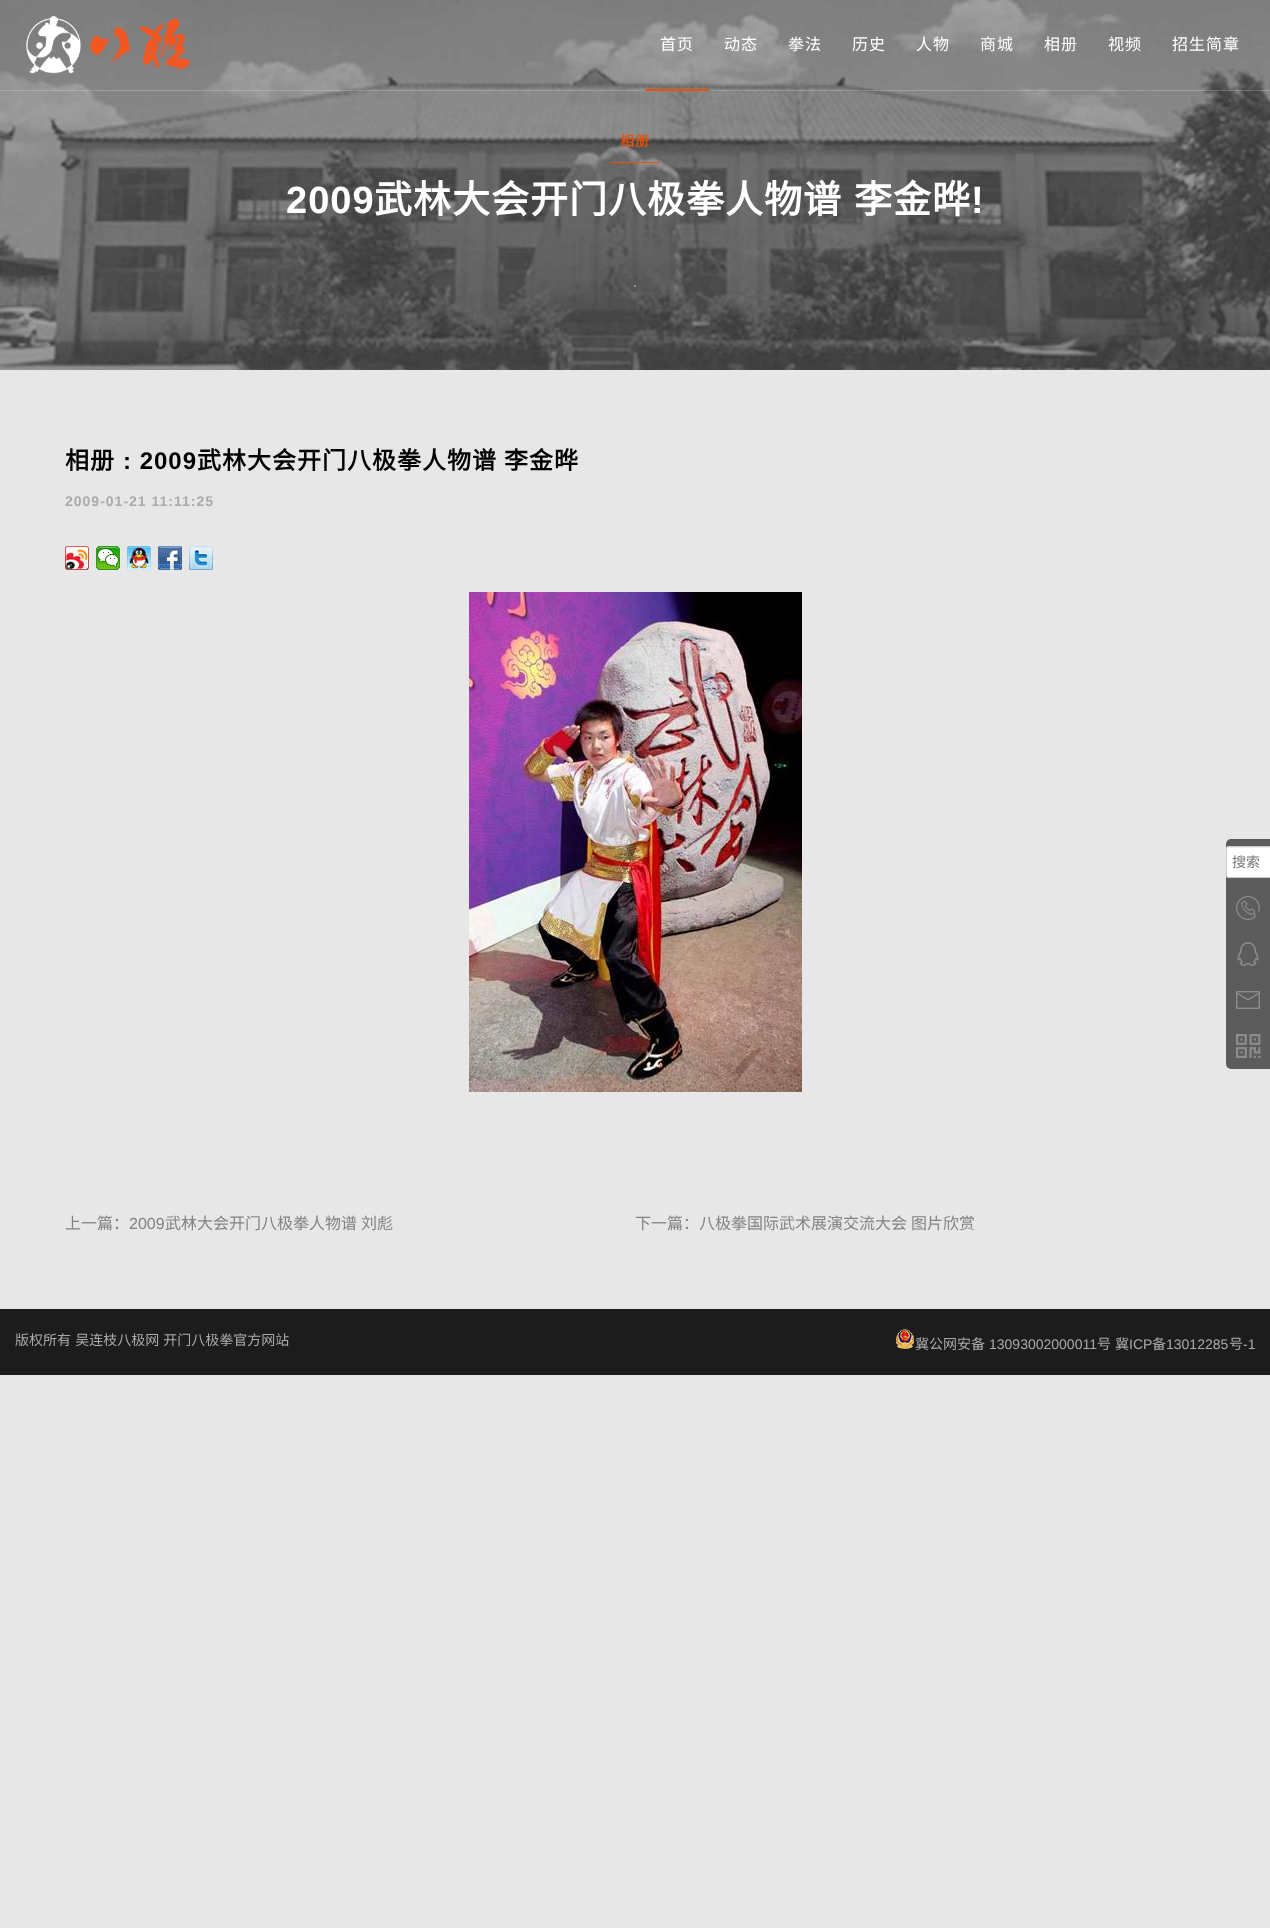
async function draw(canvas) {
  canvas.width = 1270;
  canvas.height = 1928;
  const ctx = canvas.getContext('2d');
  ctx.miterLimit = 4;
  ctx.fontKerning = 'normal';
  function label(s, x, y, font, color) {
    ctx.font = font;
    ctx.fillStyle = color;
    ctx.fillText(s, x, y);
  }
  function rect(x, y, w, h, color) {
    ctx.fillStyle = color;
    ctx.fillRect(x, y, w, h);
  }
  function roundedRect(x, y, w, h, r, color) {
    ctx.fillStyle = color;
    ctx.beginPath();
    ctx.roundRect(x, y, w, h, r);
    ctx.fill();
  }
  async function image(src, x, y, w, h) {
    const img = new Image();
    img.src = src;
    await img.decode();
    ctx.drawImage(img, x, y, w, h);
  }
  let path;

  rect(0, 0, 1270, 1928, '#e7e7e7');
  await image('assets/img2.png', 0, 0, 1270, 370);
  rect(0, 90, 1270, 1, '#ffffff33');
  await image('assets/img1.png', 26, 15, 164, 59);
  ctx.letterSpacing = '1px';
  label('首页', 660, 50, '16px Noto Sans CJK SC', '#fff');
  label('动态', 724, 50, '16px Noto Sans CJK SC', '#fff');
  label('拳法', 788, 50, '16px Noto Sans CJK SC', '#fff');
  label('历史', 852, 50, '16px Noto Sans CJK SC', '#fff');
  label('人物', 916, 50, '16px Noto Sans CJK SC', '#fff');
  label('商城', 980, 50, '16px Noto Sans CJK SC', '#fff');
  label('相册', 1044, 50, '16px Noto Sans CJK SC', '#fff');
  label('视频', 1108, 50, '16px Noto Sans CJK SC', '#fff');
  label('招生简章', 1172, 50, '16px Noto Sans CJK SC', '#fff');
  rect(645, 89, 64, 2, '#ea5106');
  label('相册', 620, 146, 'bold 14px Noto Sans CJK SC', '#ea5106');
  rect(610, 162, 50, 1, '#ea5106');
  label('2009', 286, 213, 'bold 38px Liberation Sans', '#fff');
  label('武林大会开门八极拳人物谱', 374, 213, 'bold 38px Noto Sans CJK SC', '#fff');
  label('李金晔', 854, 213, 'bold 38px Noto Sans CJK SC', '#fff');
  label('!', 971, 213, 'bold 38px Liberation Sans', '#fff');
  ctx.fillStyle = '#a7a7a7';
  ctx.beginPath();
  ctx.arc(635, 286, 1, 0, 2 * Math.PI);
  ctx.fill();
  label('相册', 65, 469, 'bold 24px Noto Sans CJK SC', '#000');
  label(': 2009', 123, 469, 'bold 24px Liberation Sans', '#000');
  label('武林大会开门八极拳人物谱', 197, 469, 'bold 24px Noto Sans CJK SC', '#000');
  label('李金晔', 504, 469, 'bold 24px Noto Sans CJK SC', '#000');
  label('2009-01-21 11:11:25', 65, 506, 'bold 14px Liberation Sans', '#aaa');
  await image('assets/img3.png', 65, 546, 24, 24);
  await image('assets/img4.png', 96, 546, 24, 24);
  await image('assets/img5.png', 127, 546, 24, 24);
  await image('assets/img6.png', 158, 546, 24, 24);
  await image('assets/img7.png', 189, 546, 24, 24);
  await image('assets/img8.png', 469, 592, 333, 500);
  ctx.letterSpacing = '0px';
  label('上一篇：', 65, 1229, '16px Noto Sans CJK SC', '#838383');
  label('2009', 129, 1229, '16px Liberation Sans', '#838383');
  label('武林大会开门八极拳人物谱', 165, 1229, '16px Noto Sans CJK SC', '#838383');
  label('刘彪', 361, 1229, '16px Noto Sans CJK SC', '#838383');
  label('下一篇：八极拳国际武术展演交流大会', 635, 1229, '16px Noto Sans CJK SC', '#838383');
  label('图片欣赏', 911, 1229, '16px Noto Sans CJK SC', '#838383');
  ctx.fillStyle = '#5c5c5c';
  ctx.beginPath();
  ctx.roundRect(1226, 839, 44, 230, [5, 0, 0, 5]);
  ctx.fill();
  roundedRect(1226, 846, 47, 32, 3, '#fff');
  ctx.fillStyle = '#ececec';
  path = new Path2D('M1229 848H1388C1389 848 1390 849 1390 850C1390 849 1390 847 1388 847H1229C1227 847 1227 849 1227 850C1227 849 1228 848 1229 848Z');
  ctx.fill(path);
  ctx.beginPath();
  ctx.roundRect(1226.5, 846.5, 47, 31, 2.5);
  ctx.strokeStyle = '#ccc';
  ctx.stroke();
  label('搜索', 1232, 867, '14px Noto Sans CJK SC', '#757575');
  await image('assets/img9.png', 1236, 896, 24, 24);
  await image('assets/img10.png', 1237, 942, 22, 24);
  await image('assets/img11.png', 1236, 991, 24, 18);
  await image('assets/img12.png', 1236, 1034, 25, 24);
  rect(0, 1309, 1270, 66, '#1c1c1c');
  ctx.wordSpacing = '1px';
  label('版权所有 吴连枝八极网 开门八极拳官方网站', 15, 1345, '14px Noto Sans CJK SC', '#aaa');
  await image('assets/img13.png', 896, 1329, 18, 20);
  ctx.wordSpacing = '0px';
  label('冀公网安备', 915, 1349, '14px Noto Sans CJK SC', '#aaa');
  label('13093002000011', 989, 1349, '14px Liberation Sans', '#aaa');
  label('号', 1097, 1349, '14px Noto Sans CJK SC', '#aaa');
  label('冀', 1115, 1349, '14px Noto Sans CJK SC', '#aaa');
  label('ICP', 1129, 1349, '14px Liberation Sans', '#aaa');
  label('备', 1152, 1349, '14px Noto Sans CJK SC', '#aaa');
  label('13012285', 1166, 1349, '14px Liberation Sans', '#aaa');
  label('号', 1229, 1349, '14px Noto Sans CJK SC', '#aaa');
  label('-1', 1243, 1349, '14px Liberation Sans', '#aaa');
}

draw(document.querySelector('canvas'));
